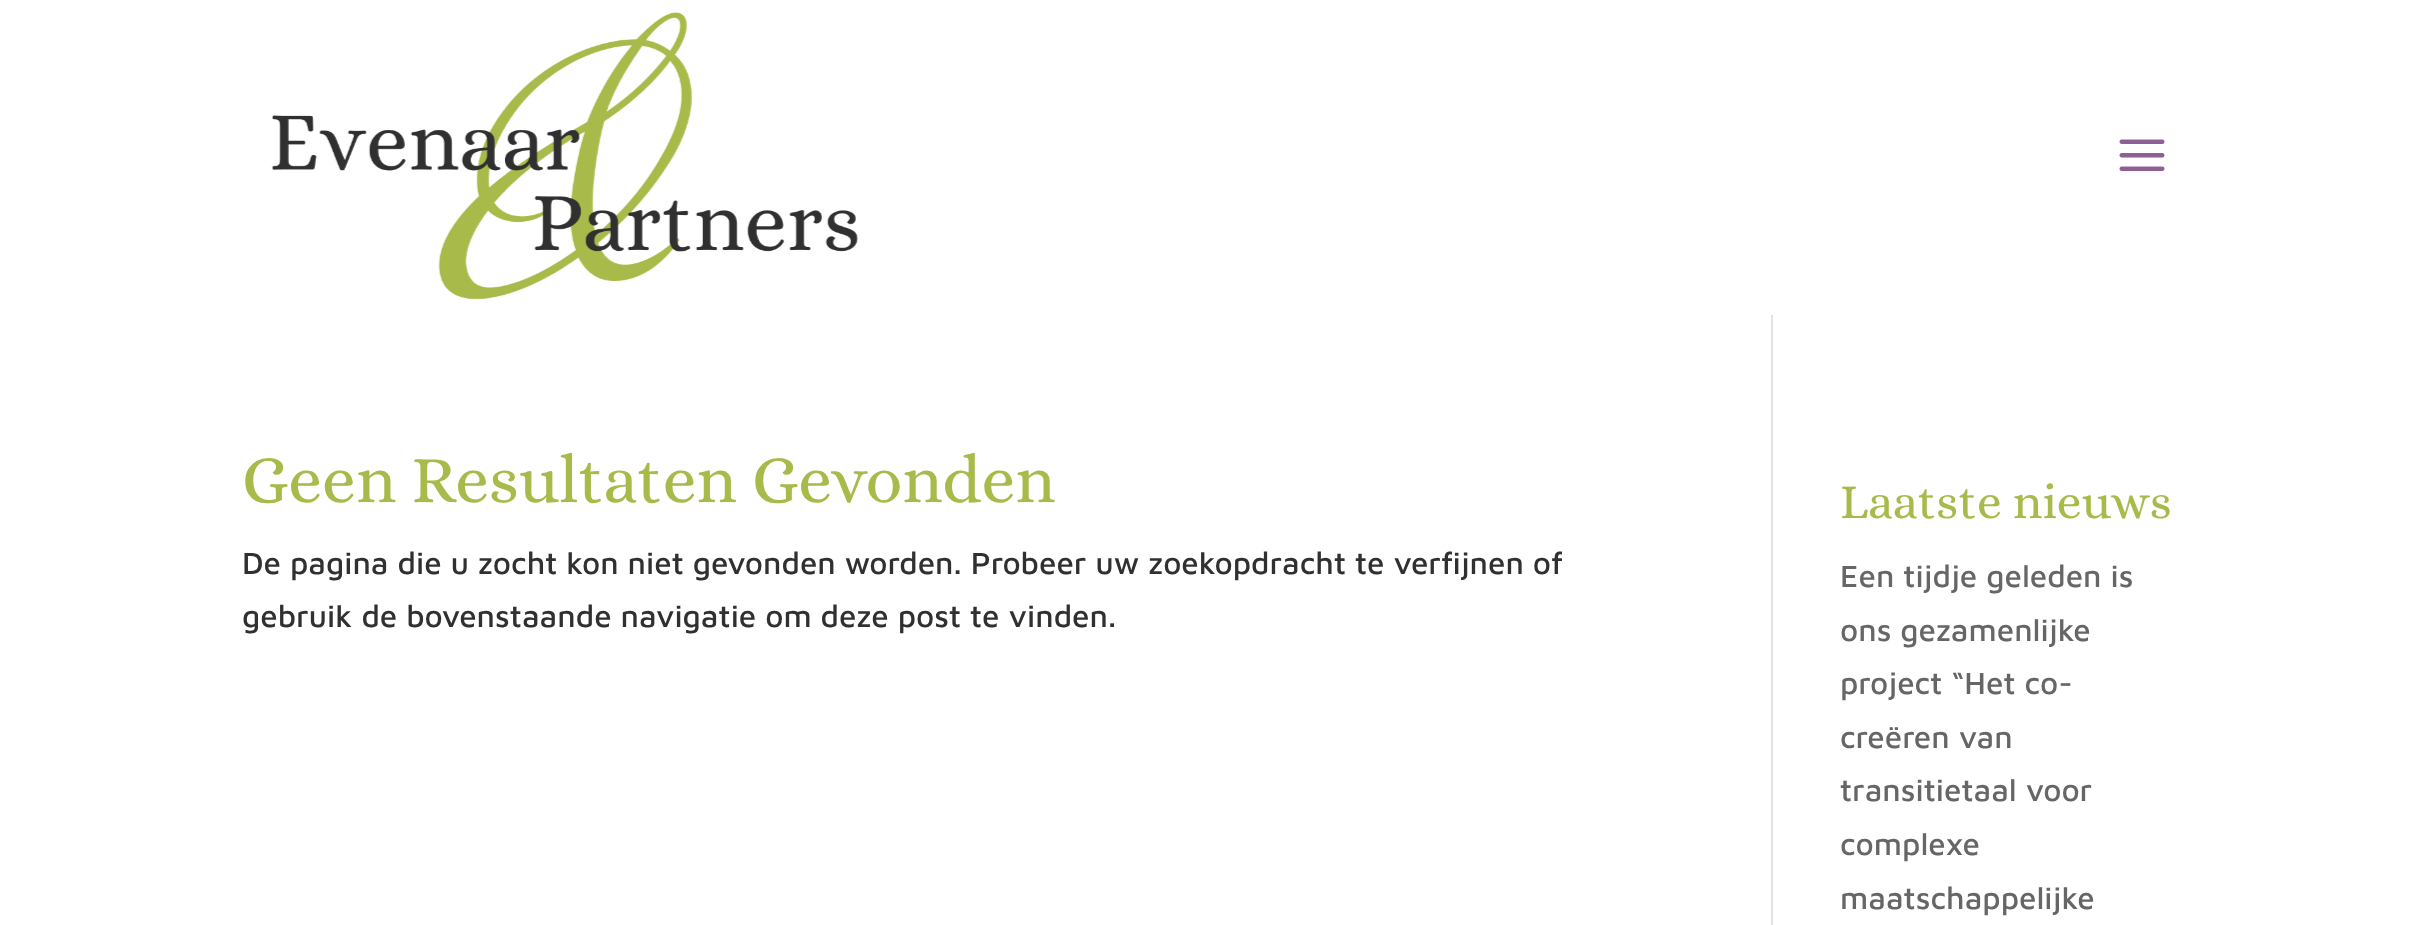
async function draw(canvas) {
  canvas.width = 2417;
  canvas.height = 925;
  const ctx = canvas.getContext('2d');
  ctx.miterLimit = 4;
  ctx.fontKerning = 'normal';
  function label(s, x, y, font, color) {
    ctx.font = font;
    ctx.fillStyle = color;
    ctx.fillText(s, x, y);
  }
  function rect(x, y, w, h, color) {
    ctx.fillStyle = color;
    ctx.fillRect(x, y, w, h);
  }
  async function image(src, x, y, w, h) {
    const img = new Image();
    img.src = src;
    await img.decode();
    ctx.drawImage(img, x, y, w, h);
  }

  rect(0, 0, 2417, 925, '#fff');
  await image('assets/img1.png', 271, 12, 587, 288);
  await image('assets/img2.png', 2119, 139, 46, 32);
  rect(1771, 315, 2, 610, '#e2e2e2');
  label('Geen Resultaten Gevonden', 242, 502, '67.5px Alice', '#a8bb4a');
  label('De pagina die u zocht kon niet gevonden worden. Probeer uw zoekopdracht te verfijnen of', 242, 574, '500 31.5px Maven Pro', '#303030');
  label('gebruik de bovenstaande navigatie om deze post te vinden.', 242, 627, '500 31.5px Maven Pro', '#303030');
  label('Laatste nieuws', 1840, 518, '49.5px Alice', '#a8bb4a');
  label('Een tijdje geleden is', 1840, 587, '500 31.5px Maven Pro', '#666');
  label('ons gezamenlijke', 1840, 641, '500 31.5px Maven Pro', '#666');
  label('project “Het co-', 1840, 694, '500 31.5px Maven Pro', '#666');
  label('creëren van', 1840, 748, '500 31.5px Maven Pro', '#666');
  label('transitietaal voor', 1840, 801, '500 31.5px Maven Pro', '#666');
  label('complexe', 1840, 855, '500 31.5px Maven Pro', '#666');
  label('maatschappelijke', 1840, 909, '500 31.5px Maven Pro', '#666');
}

draw(document.querySelector('canvas'));
